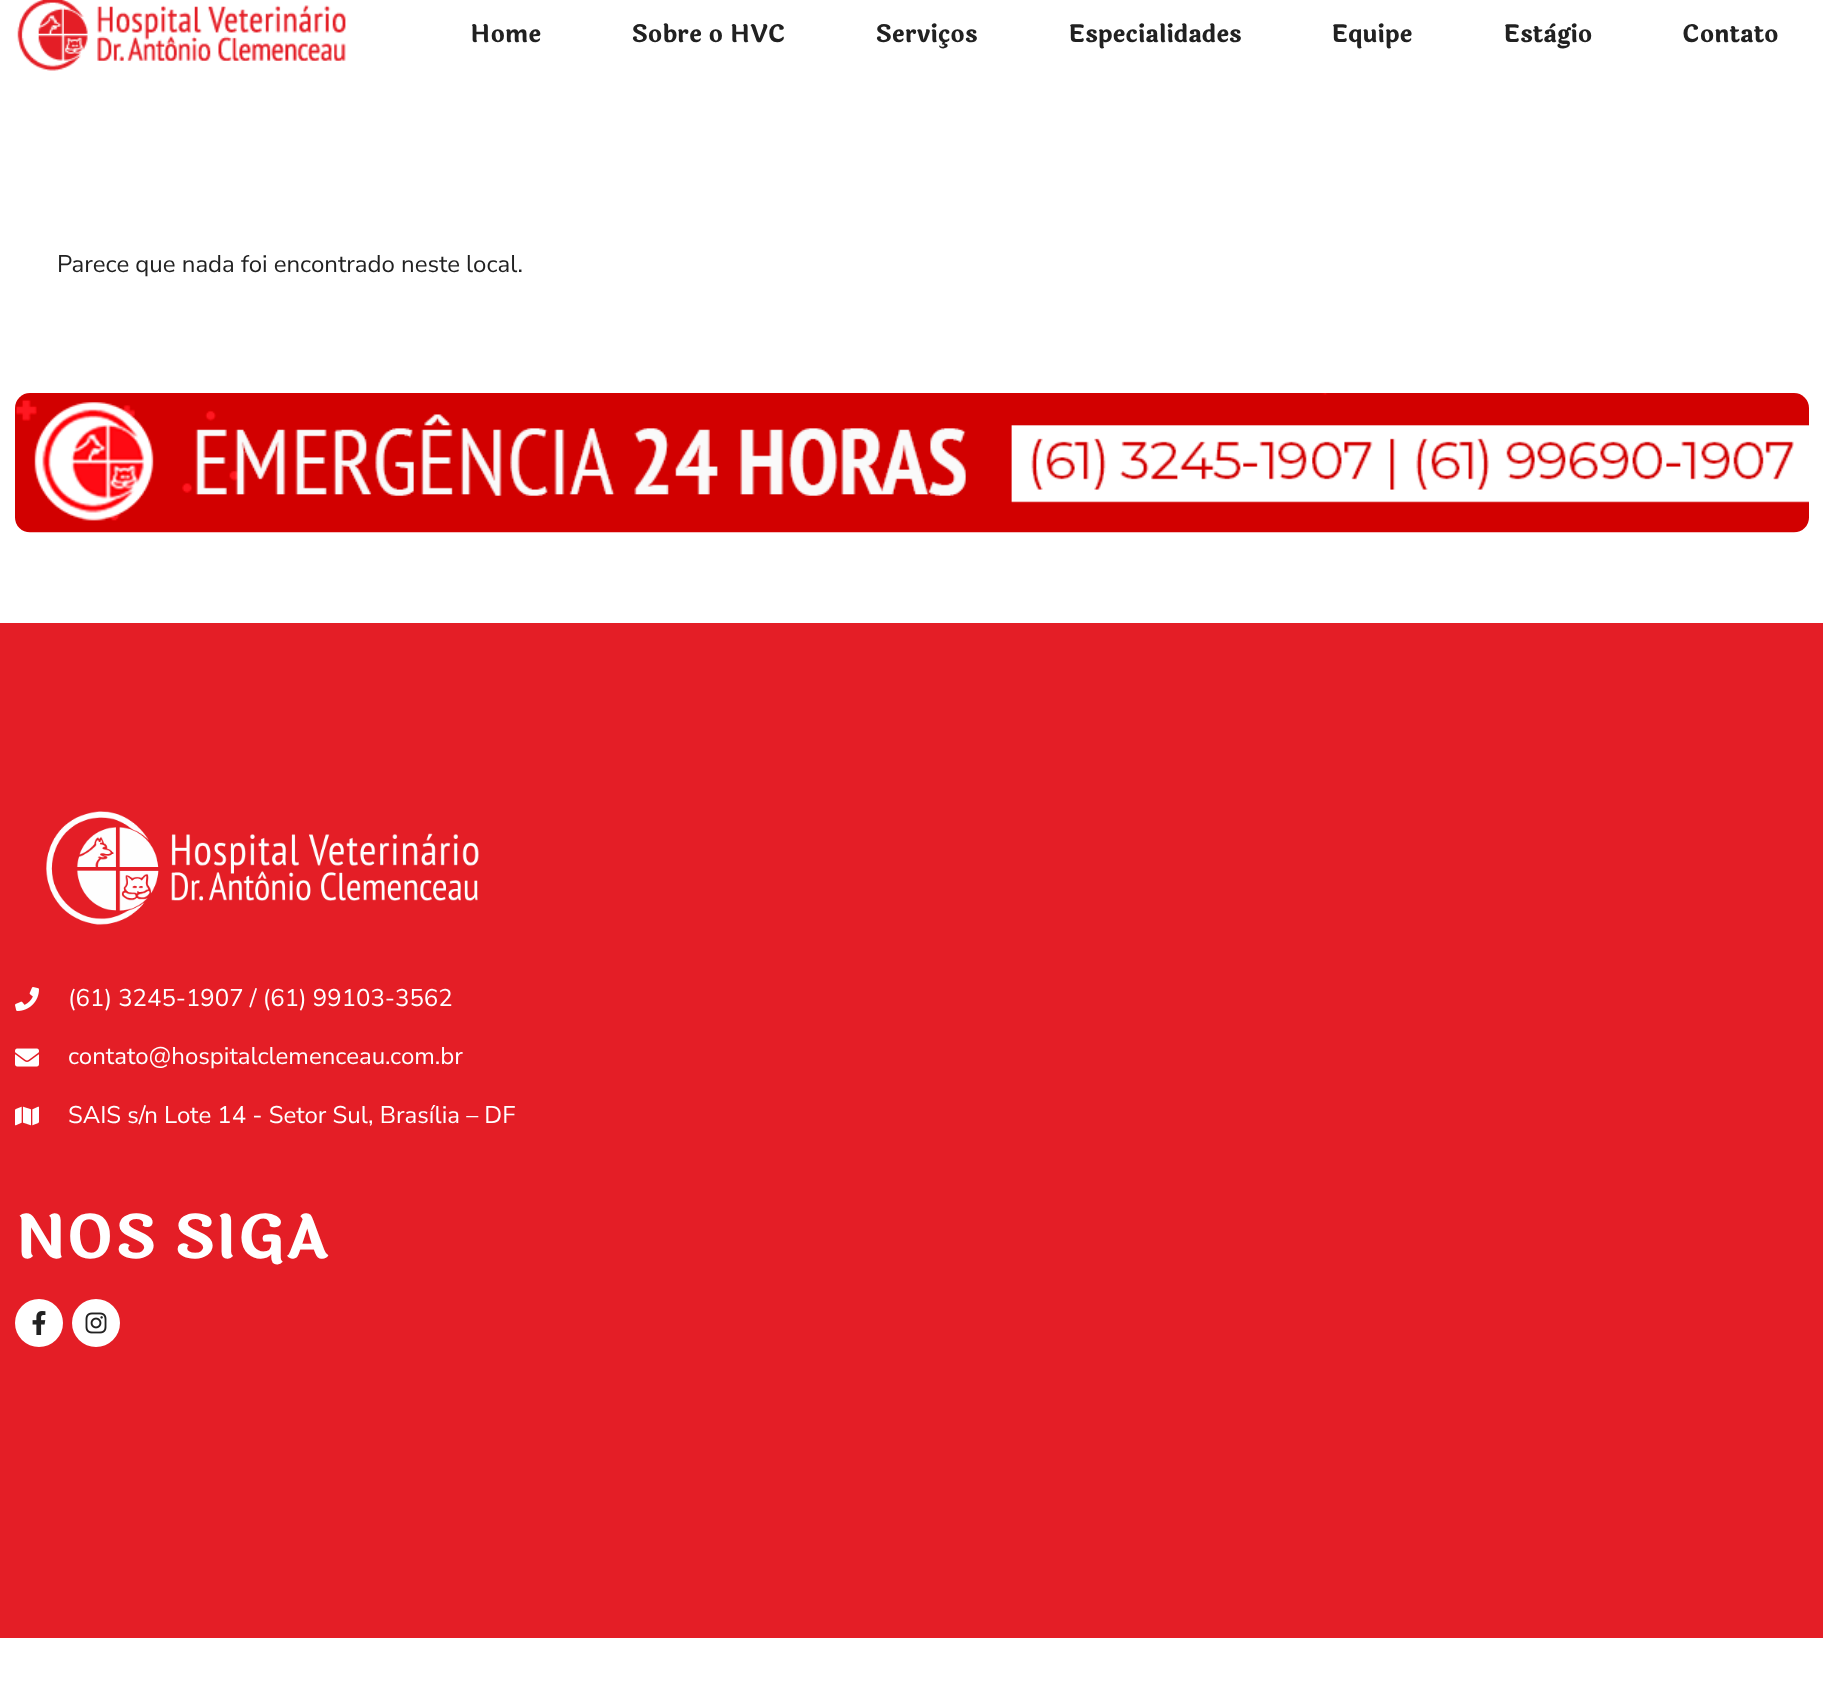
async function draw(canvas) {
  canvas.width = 1823;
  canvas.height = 1684;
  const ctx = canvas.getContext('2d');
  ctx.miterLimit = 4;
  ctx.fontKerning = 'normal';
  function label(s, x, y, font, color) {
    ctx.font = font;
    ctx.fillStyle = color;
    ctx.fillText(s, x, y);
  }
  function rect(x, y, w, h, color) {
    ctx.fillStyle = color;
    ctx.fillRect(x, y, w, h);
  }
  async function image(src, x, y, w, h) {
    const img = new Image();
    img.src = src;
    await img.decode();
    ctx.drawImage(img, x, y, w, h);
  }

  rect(0, 0, 1823, 1684, '#fff');
  await image('assets/img1.png', 17, 0, 329, 71);
  label('Home', 470, 42, 'bold 24px Laila', '#212121');
  label('Sobre o HVC', 631, 42, 'bold 24px Laila', '#212121');
  label('Serviços', 875, 42, 'bold 24px Laila', '#212121');
  label('Especialidades', 1068, 42, 'bold 24px Laila', '#212121');
  label('Equipe', 1331, 42, 'bold 24px Laila', '#212121');
  label('Estàgio', 1503, 42, 'bold 24px Laila', '#212121');
  label('Contato', 1682, 42, 'bold 24px Laila', '#212121');
  label('Parece que nada foi encontrado neste local.', 57, 272, '24px Nunito Sans', '#212121');
  await image('assets/img2.png', 15, 393, 1794, 140);
  rect(0, 623, 1823, 1015, '#e41e26');
  await image('assets/img3.png', 46, 811, 433, 114);
  await image('assets/img4.png', 15, 987, 24, 24);
  label('(61) 3245-1907 / (61) 99103-3562', 68, 1006, '24px Nunito Sans', '#fff');
  await image('assets/img5.png', 15, 1048, 24, 19);
  label('contato@hospitalclemenceau.com.br', 68, 1064, '24px Nunito Sans', '#fff');
  await image('assets/img6.png', 15, 1106, 24, 20);
  label('SAIS s/n Lote 14 - Setor Sul, Brasília – DF', 68, 1123, '24px Nunito Sans', '#fff');
  label('NOS SIGA', 15, 1258, 'bold 60px Laila', '#fff');
  ctx.beginPath();
  ctx.arc(39, 1323, 24, 0, 2 * Math.PI);
  ctx.fill();
  await image('assets/img7.png', 32, 1311, 14, 24);
  ctx.beginPath();
  ctx.arc(96, 1323, 24, 0, 2 * Math.PI);
  ctx.fill();
  await image('assets/img8.png', 85, 1312, 22, 22);
}

draw(document.querySelector('canvas'));
